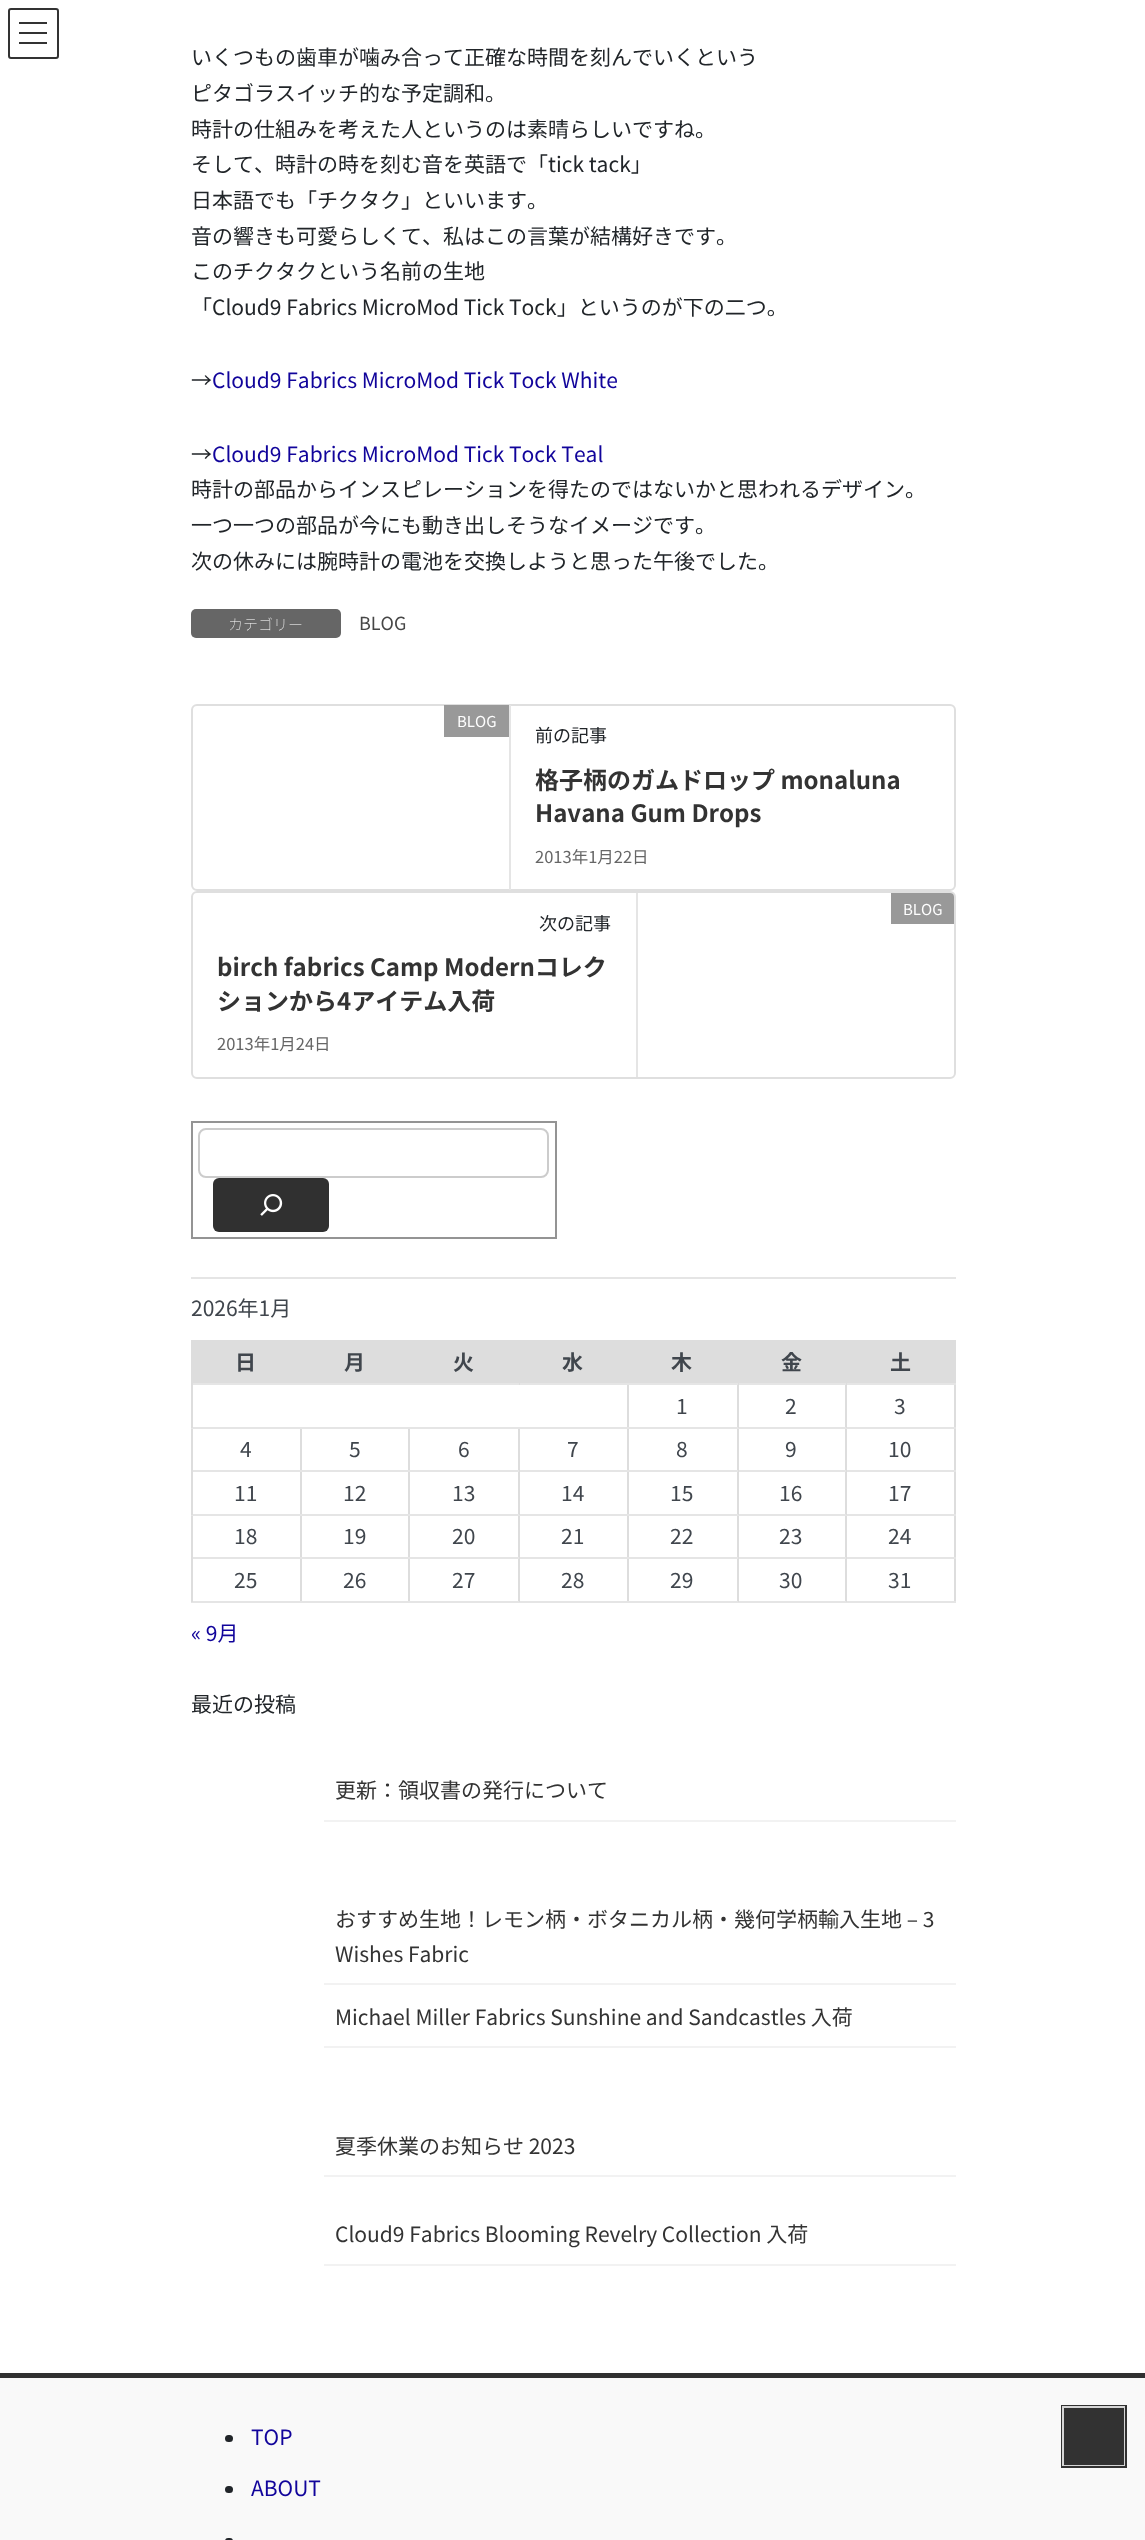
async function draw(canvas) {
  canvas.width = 1145;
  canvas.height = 2540;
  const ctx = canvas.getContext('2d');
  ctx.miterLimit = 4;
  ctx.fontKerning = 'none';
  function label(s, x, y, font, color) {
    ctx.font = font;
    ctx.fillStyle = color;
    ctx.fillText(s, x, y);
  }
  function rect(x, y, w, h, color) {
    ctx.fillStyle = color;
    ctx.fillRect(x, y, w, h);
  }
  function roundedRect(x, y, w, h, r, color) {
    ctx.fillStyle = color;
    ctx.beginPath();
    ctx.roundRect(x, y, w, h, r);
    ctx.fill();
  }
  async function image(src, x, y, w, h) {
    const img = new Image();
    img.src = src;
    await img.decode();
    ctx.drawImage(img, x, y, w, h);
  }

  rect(0, 0, 1145, 2540, '#fff');
  rect(19, 22, 28, 2, '#333');
  rect(19, 32, 28, 2, '#333');
  rect(19, 42, 28, 2, '#333');
  ctx.beginPath();
  ctx.roundRect(9, 9, 49, 49, 2);
  ctx.strokeStyle = '#333';
  ctx.lineWidth = 2;
  ctx.stroke();
  label('いくつもの歯車が噛み合って正確な時間を刻んでいくという', 191, 65, '21px Noto Sans JP', '#212529');
  label('ピタゴラスイッチ的な予定調和。', 191, 101, '21px Noto Sans JP', '#212529');
  label('時計の仕組みを考えた人というのは素晴らしいですね。', 191, 137, '21px Noto Sans JP', '#212529');
  label('そして、時計の時を刻む音を英語で「tick tack」', 191, 172, '21px Noto Sans JP', '#212529');
  label('日本語でも「チクタク」といいます。', 191, 208, '21px Noto Sans JP', '#212529');
  label('音の響きも可愛らしくて、私はこの言葉が結構好きです。', 191, 244, '21px Noto Sans JP', '#212529');
  label('このチクタクという名前の生地', 191, 279, '21px Noto Sans JP', '#212529');
  label('「Cloud9 Fabrics MicroMod Tick Tock」というのが下の二つ。', 191, 315, '21px Noto Sans JP', '#212529');
  label('→', 191, 388, '21px Noto Sans JP', '#212529');
  label('Cloud9 Fabrics MicroMod Tick Tock White', 212, 388, '21px Noto Sans JP', '#11049b');
  label('→', 191, 462, '21px Noto Sans JP', '#212529');
  label('Cloud9 Fabrics MicroMod Tick Tock Teal', 212, 462, '21px Noto Sans JP', '#11049b');
  label('時計の部品からインスピレーションを得たのではないかと思われるデザイン。', 191, 497, '21px Noto Sans JP', '#212529');
  label('一つ一つの部品が今にも動き出しそうなイメージです。', 191, 533, '21px Noto Sans JP', '#212529');
  label('次の休みには腕時計の電池を交換しようと思った午後でした。', 191, 569, '21px Noto Sans JP', '#212529');
  roundedRect(191, 609, 150, 29, 5, '#666');
  label('カテゴリー', 228, 630, '100 15px Noto Sans JP', '#fff');
  label('BLOG', 359, 630, '18px Noto Sans JP', '#464646');
  ctx.beginPath();
  ctx.roundRect(192, 705, 763, 185, 5);
  ctx.strokeStyle = '#dfdfdf';
  ctx.stroke();
  rect(509, 705, 2, 185, '#e5e5e5');
  rect(444, 705, 65, 32, '#999');
  label('BLOG', 457, 727, '15px Noto Sans JP', '#fff');
  label('前の記事', 535, 742, '18px Noto Sans JP', '#212529');
  label('格子柄のガムドロップ monaluna', 535, 789, 'bold 24px Noto Sans JP', '#333');
  label('Havana Gum Drops', 535, 822, 'bold 24px Noto Sans JP', '#333');
  label('2013年1月22日', 535, 863, '16.5px Noto Sans JP', '#666');
  ctx.beginPath();
  ctx.roundRect(192, 892, 763, 186, 5);
  ctx.stroke();
  rect(636, 893, 2, 184, '#e5e5e5');
  ctx.fillStyle = '#999';
  ctx.beginPath();
  ctx.roundRect(891, 893, 63, 31, [0, 4, 0, 0]);
  ctx.fill();
  label('BLOG', 903, 915, '15px Noto Sans JP', '#fff');
  label('次の記事', 539, 930, '18px Noto Sans JP', '#212529');
  label('birch fabrics Camp Modernコレク', 217, 976, 'bold 24px Noto Sans JP', '#333');
  label('ションから4アイテム入荷', 217, 1010, 'bold 24px Noto Sans JP', '#333');
  label('2013年1月24日', 217, 1050, '16.5px Noto Sans JP', '#666');
  ctx.strokeStyle = '#949494';
  ctx.strokeRect(192, 1122, 364, 116);
  ctx.beginPath();
  ctx.roundRect(199, 1129, 349, 48, 7);
  ctx.strokeStyle = '#ccc';
  ctx.stroke();
  roundedRect(213, 1178, 116, 54, 6, '#303030');
  await image('assets/img1.png', 260, 1194, 23, 22);
  rect(191, 1277, 765, 2, '#e5e5e5');
  label('2026年1月', 191, 1316, '21px Noto Sans JP', '#40464d');
  rect(193, 1342, 107, 41, '#ddd');
  rect(845, 1340, 111, 2, '#ddd');
  rect(954, 1383, 2, 219, '#ddd');
  rect(845, 1601, 111, 2, '#e5e5e5');
  rect(845, 1557, 2, 45, '#ddd');
  rect(845, 1557, 111, 2, '#e5e5e5');
  rect(845, 1514, 2, 45, '#ddd');
  rect(845, 1514, 111, 2, '#e5e5e5');
  rect(845, 1470, 2, 45, '#ddd');
  rect(845, 1470, 111, 2, '#e5e5e5');
  rect(845, 1427, 2, 45, '#ddd');
  rect(845, 1427, 111, 2, '#e5e5e5');
  rect(845, 1383, 2, 45, '#ddd');
  rect(845, 1383, 111, 2, '#e5e5e5');
  rect(845, 1340, 2, 45, '#ddd');
  rect(737, 1340, 109, 2, '#ddd');
  rect(737, 1601, 109, 2, '#e5e5e5');
  rect(737, 1557, 2, 45, '#ddd');
  rect(737, 1557, 109, 2, '#e5e5e5');
  rect(737, 1514, 2, 45, '#ddd');
  rect(737, 1514, 109, 2, '#e5e5e5');
  rect(737, 1470, 2, 45, '#ddd');
  rect(737, 1470, 109, 2, '#e5e5e5');
  rect(737, 1427, 2, 45, '#ddd');
  rect(737, 1427, 109, 2, '#e5e5e5');
  rect(737, 1383, 2, 45, '#ddd');
  rect(737, 1383, 109, 2, '#e5e5e5');
  rect(737, 1340, 2, 45, '#ddd');
  rect(627, 1340, 111, 2, '#ddd');
  rect(627, 1601, 111, 2, '#e5e5e5');
  rect(627, 1557, 2, 45, '#ddd');
  rect(627, 1557, 111, 2, '#e5e5e5');
  rect(627, 1514, 2, 45, '#ddd');
  rect(627, 1514, 111, 2, '#e5e5e5');
  rect(627, 1470, 2, 45, '#ddd');
  rect(627, 1470, 111, 2, '#e5e5e5');
  rect(627, 1427, 2, 45, '#ddd');
  rect(627, 1427, 111, 2, '#e5e5e5');
  rect(627, 1383, 2, 45, '#ddd');
  rect(627, 1383, 111, 2, '#e5e5e5');
  rect(627, 1340, 2, 45, '#ddd');
  rect(518, 1340, 111, 2, '#ddd');
  rect(518, 1383, 111, 2, '#e5e5e5');
  rect(518, 1340, 2, 45, '#ddd');
  rect(408, 1340, 111, 2, '#ddd');
  rect(408, 1383, 111, 2, '#e5e5e5');
  rect(408, 1340, 2, 45, '#ddd');
  rect(300, 1340, 110, 2, '#ddd');
  rect(300, 1383, 110, 2, '#e5e5e5');
  rect(300, 1340, 2, 45, '#ddd');
  rect(191, 1340, 111, 2, '#ddd');
  rect(518, 1601, 111, 2, '#e5e5e5');
  rect(518, 1557, 2, 45, '#ddd');
  rect(518, 1557, 111, 2, '#e5e5e5');
  rect(518, 1514, 2, 45, '#ddd');
  rect(518, 1514, 111, 2, '#e5e5e5');
  rect(518, 1470, 2, 45, '#ddd');
  rect(518, 1470, 111, 2, '#e5e5e5');
  rect(518, 1427, 2, 45, '#ddd');
  rect(408, 1601, 111, 2, '#e5e5e5');
  rect(408, 1557, 2, 45, '#ddd');
  rect(408, 1557, 111, 2, '#e5e5e5');
  rect(408, 1514, 2, 45, '#ddd');
  rect(408, 1514, 111, 2, '#e5e5e5');
  rect(408, 1470, 2, 45, '#ddd');
  rect(408, 1470, 111, 2, '#e5e5e5');
  rect(408, 1427, 2, 45, '#ddd');
  rect(300, 1601, 110, 2, '#e5e5e5');
  rect(300, 1557, 2, 45, '#ddd');
  rect(300, 1557, 110, 2, '#e5e5e5');
  rect(300, 1514, 2, 45, '#ddd');
  rect(300, 1514, 110, 2, '#e5e5e5');
  rect(300, 1470, 2, 45, '#ddd');
  rect(300, 1470, 110, 2, '#e5e5e5');
  rect(300, 1427, 2, 45, '#ddd');
  rect(191, 1601, 111, 2, '#e5e5e5');
  rect(191, 1557, 2, 45, '#ddd');
  rect(191, 1557, 111, 2, '#e5e5e5');
  rect(191, 1514, 2, 45, '#ddd');
  rect(191, 1514, 111, 2, '#e5e5e5');
  rect(191, 1470, 2, 45, '#ddd');
  rect(191, 1470, 111, 2, '#e5e5e5');
  rect(191, 1427, 2, 45, '#ddd');
  rect(191, 1427, 438, 2, '#e5e5e5');
  rect(191, 1383, 2, 45, '#ddd');
  rect(191, 1383, 111, 2, '#e5e5e5');
  rect(191, 1340, 2, 45, '#ddd');
  label('日', 235, 1370, 'bold 21px Noto Sans JP', '#40464d');
  rect(302, 1342, 106, 41, '#ddd');
  label('月', 344, 1370, 'bold 21px Noto Sans JP', '#40464d');
  rect(410, 1342, 108, 41, '#ddd');
  label('火', 453, 1370, 'bold 21px Noto Sans JP', '#40464d');
  rect(520, 1342, 107, 41, '#ddd');
  label('水', 562, 1370, 'bold 21px Noto Sans JP', '#40464d');
  rect(629, 1342, 108, 41, '#ddd');
  label('木', 671, 1370, 'bold 21px Noto Sans JP', '#40464d');
  rect(739, 1342, 106, 41, '#ddd');
  label('金', 781, 1370, 'bold 21px Noto Sans JP', '#40464d');
  rect(847, 1342, 109, 41, '#ddd');
  label('土', 890, 1370, 'bold 21px Noto Sans JP', '#40464d');
  label('1', 676, 1414, '21px Noto Sans JP', '#40464d');
  label('2', 785, 1414, '21px Noto Sans JP', '#40464d');
  label('3', 894, 1414, '21px Noto Sans JP', '#40464d');
  label('4', 240, 1457, '21px Noto Sans JP', '#40464d');
  label('5', 349, 1457, '21px Noto Sans JP', '#40464d');
  label('6', 458, 1457, '21px Noto Sans JP', '#40464d');
  label('7', 567, 1457, '21px Noto Sans JP', '#40464d');
  label('8', 676, 1457, '21px Noto Sans JP', '#40464d');
  label('9', 785, 1457, '21px Noto Sans JP', '#40464d');
  label('10', 888, 1457, '21px Noto Sans JP', '#40464d');
  label('11', 234, 1501, '21px Noto Sans JP', '#40464d');
  label('12', 343, 1501, '21px Noto Sans JP', '#40464d');
  label('13', 452, 1501, '21px Noto Sans JP', '#40464d');
  label('14', 561, 1501, '21px Noto Sans JP', '#40464d');
  label('15', 670, 1501, '21px Noto Sans JP', '#40464d');
  label('16', 779, 1501, '21px Noto Sans JP', '#40464d');
  label('17', 888, 1501, '21px Noto Sans JP', '#40464d');
  label('18', 234, 1544, '21px Noto Sans JP', '#40464d');
  label('19', 343, 1544, '21px Noto Sans JP', '#40464d');
  label('20', 452, 1544, '21px Noto Sans JP', '#40464d');
  label('21', 561, 1544, '21px Noto Sans JP', '#40464d');
  label('22', 670, 1544, '21px Noto Sans JP', '#40464d');
  label('23', 779, 1544, '21px Noto Sans JP', '#40464d');
  label('24', 888, 1544, '21px Noto Sans JP', '#40464d');
  label('25', 234, 1588, '21px Noto Sans JP', '#40464d');
  label('26', 343, 1588, '21px Noto Sans JP', '#40464d');
  label('27', 452, 1588, '21px Noto Sans JP', '#40464d');
  label('28', 561, 1588, '21px Noto Sans JP', '#40464d');
  label('29', 670, 1588, '21px Noto Sans JP', '#40464d');
  label('30', 779, 1588, '21px Noto Sans JP', '#40464d');
  label('31', 888, 1588, '21px Noto Sans JP', '#40464d');
  label('« 9月', 191, 1641, '21px Noto Sans JP', '#11049b');
  label('最近の投稿', 191, 1712, '21px Noto Sans JP', '#212529');
  rect(324, 1820, 632, 2, '#f2f2f2');
  label('更新：領収書の発行について', 335, 1798, '21px Noto Sans JP', '#333');
  rect(324, 1983, 632, 2, '#f2f2f2');
  label('おすすめ生地！レモン柄・ボタニカル柄・幾何学柄輸入生地 – 3', 335, 1927, '21px Noto Sans JP', '#333');
  label('Wishes Fabric', 335, 1962, '21px Noto Sans JP', '#333');
  rect(324, 2046, 632, 2, '#f2f2f2');
  label('Michael Miller Fabrics Sunshine and Sandcastles 入荷', 335, 2025, '21px Noto Sans JP', '#333');
  rect(324, 2175, 632, 2, '#f2f2f2');
  label('夏季休業のお知らせ 2023', 335, 2154, '21px Noto Sans JP', '#333');
  rect(324, 2264, 632, 2, '#f2f2f2');
  label('Cloud9 Fabrics Blooming Revelry Collection 入荷', 335, 2242, '21px Noto Sans JP', '#333');
  rect(0, 2378, 1145, 162, '#f9f9f9');
  rect(0, 2373, 1145, 5, '#303030');
  roundedRect(225, 2435, 8, 7, 3.5, '#212529');
  label('TOP', 251, 2445, '21px Noto Sans JP', '#11049b');
  roundedRect(225, 2486, 8, 7, 3.5, '#212529');
  label('ABOUT', 251, 2496, '21px Noto Sans JP', '#11049b');
  roundedRect(225, 2538, 8, 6, 4, '#212529');
  ctx.strokeStyle = '#323232';
  ctx.lineWidth = 3;
  ctx.strokeRect(1062.5, 2406.5, 63, 60);
  ctx.strokeStyle = '#ffffffcc';
  ctx.lineWidth = 2;
  ctx.strokeRect(1063, 2407, 61, 58);
  rect(1064, 2408, 60, 57, '#000000cc');
}

draw(document.querySelector('canvas'));
